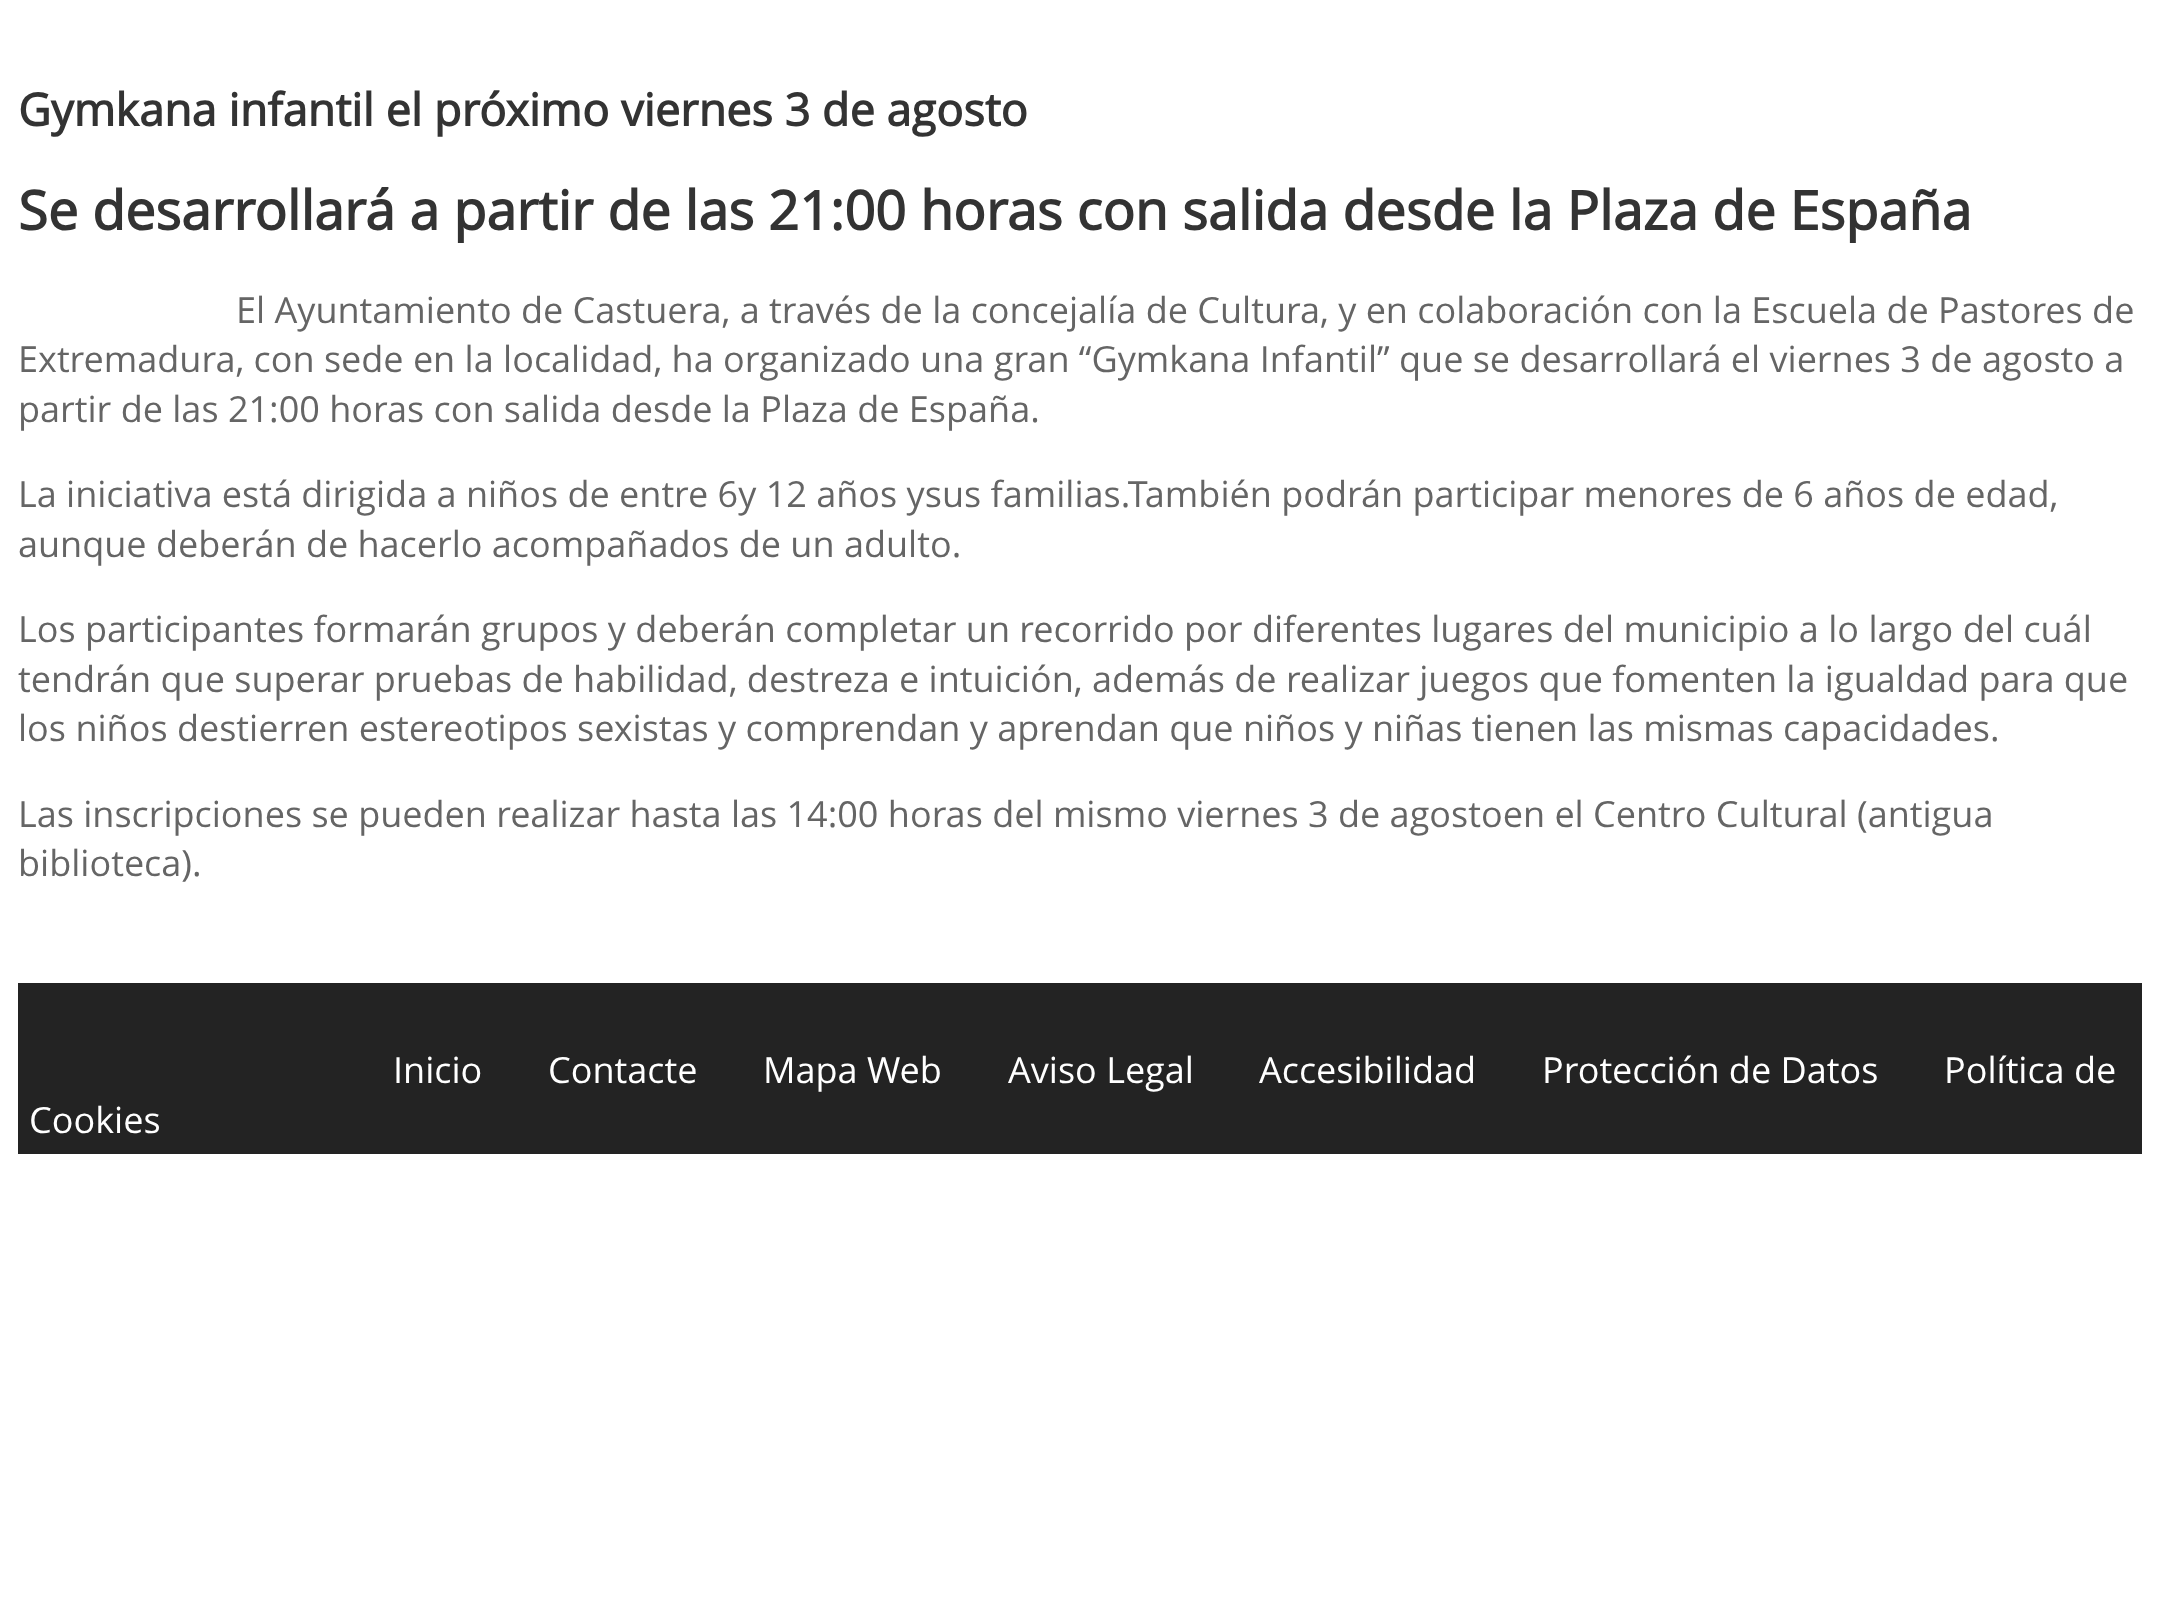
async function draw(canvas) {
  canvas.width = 2158;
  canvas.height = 1603;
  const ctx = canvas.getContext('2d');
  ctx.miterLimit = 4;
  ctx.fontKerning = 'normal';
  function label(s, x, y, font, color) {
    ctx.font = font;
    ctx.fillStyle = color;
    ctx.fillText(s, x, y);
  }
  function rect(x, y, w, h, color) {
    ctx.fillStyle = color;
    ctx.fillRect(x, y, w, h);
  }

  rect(0, 0, 2158, 1603, '#fff');
  label('Gymkana infantil el próximo viernes 3 de agosto', 18, 126, 'bold 45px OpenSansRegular', '#333');
  label('Se desarrollará a partir de las 21:00 horas con salida desde la Plaza de España', 18, 230, 'bold 54px OpenSansRegular', '#333');
  label('El Ayuntamiento de Castuera, a través de la concejalía de Cultura, y en colaboración con la Escuela de Pastores de', 236, 323, '36px OpenSansRegular', '#656565');
  label('Extremadura, con sede en la localidad, ha organizado una gran “Gymkana Infantil” que se desarrollará el viernes 3 de agosto a', 18, 372, '36px OpenSansRegular', '#656565');
  label('partir de las 21:00 horas con salida desde la Plaza de España.', 18, 422, '36px OpenSansRegular', '#656565');
  label('La iniciativa está dirigida a niños de entre 6y 12 años ysus familias.También podrán participar menores de 6 años de edad,', 18, 507, '36px OpenSansRegular', '#656565');
  label('aunque deberán de hacerlo acompañados de un adulto.', 18, 557, '36px OpenSansRegular', '#656565');
  label('Los participantes formarán grupos y deberán completar un recorrido por diferentes lugares del municipio a lo largo del cuál', 18, 642, '36px OpenSansRegular', '#656565');
  label('tendrán que superar pruebas de habilidad, destreza e intuición, además de realizar juegos que fomenten la igualdad para que', 18, 692, '36px OpenSansRegular', '#656565');
  label('los niños destierren estereotipos sexistas y comprendan y aprendan que niños y niñas tienen las mismas capacidades.', 18, 741, '36px OpenSansRegular', '#656565');
  label('Las inscripciones se pueden realizar hasta las 14:00 horas del mismo viernes 3 de agostoen el Centro Cultural (antigua', 18, 827, '36px OpenSansRegular', '#656565');
  label('biblioteca).', 18, 876, '36px OpenSansRegular', '#656565');
  rect(18, 983, 2124, 171, '#232323');
  label('Inicio', 393, 1083, '36px OpenSansRegular', '#fff');
  label('Contacte', 548, 1083, '36px OpenSansRegular', '#fff');
  label('Mapa Web', 763, 1083, '36px OpenSansRegular', '#fff');
  label('Aviso Legal', 1008, 1083, '36px OpenSansRegular', '#fff');
  label('Accesibilidad', 1259, 1083, '36px OpenSansRegular', '#fff');
  label('Protección de Datos', 1542, 1083, '36px OpenSansRegular', '#fff');
  label('Política de', 1944, 1083, '36px OpenSansRegular', '#fff');
  label('Cookies', 29, 1133, '36px OpenSansRegular', '#fff');
}

draw(document.querySelector('canvas'));
